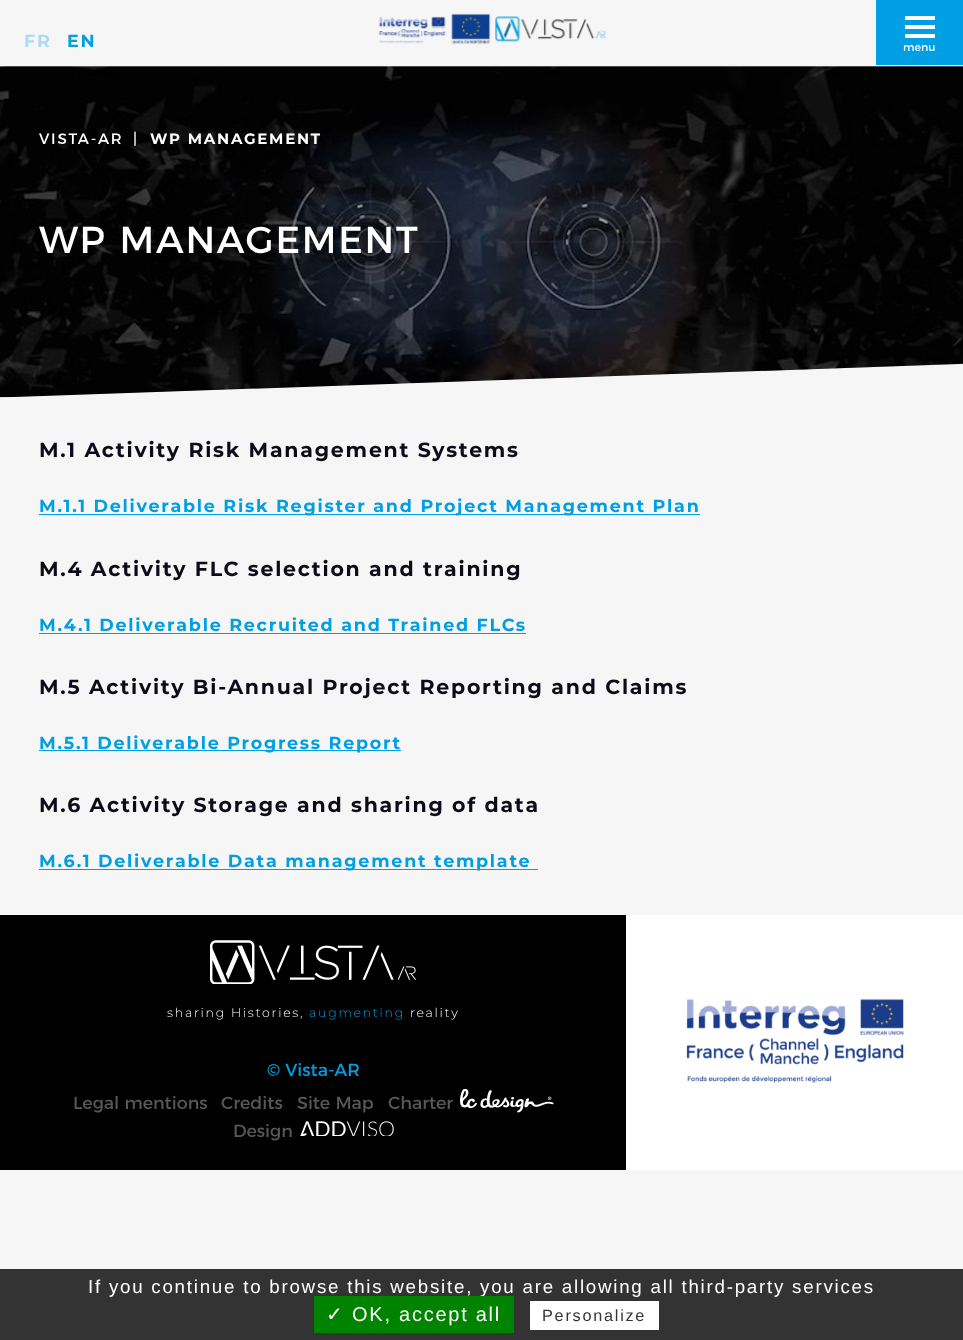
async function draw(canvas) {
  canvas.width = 963;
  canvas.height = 1340;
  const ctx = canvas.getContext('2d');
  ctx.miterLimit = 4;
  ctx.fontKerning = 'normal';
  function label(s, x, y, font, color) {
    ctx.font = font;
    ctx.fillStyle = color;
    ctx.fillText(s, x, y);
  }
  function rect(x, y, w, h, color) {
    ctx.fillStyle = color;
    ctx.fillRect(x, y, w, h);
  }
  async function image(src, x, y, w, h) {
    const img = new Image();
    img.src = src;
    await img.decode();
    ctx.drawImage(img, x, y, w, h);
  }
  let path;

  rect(0, 0, 963, 1340, '#f6f6f6');
  ctx.letterSpacing = '1.75px';
  label('FR', 24, 47, 'bold 17.5px Montserrat', '#acdcf0');
  label('EN', 67, 47, 'bold 17.5px Montserrat', '#009fe3');
  await image('assets/img1.png', 379, 13, 228, 32);
  rect(876, 0, 87, 65, '#009fe3');
  rect(905, 16, 30, 4, '#fff');
  rect(905, 25, 30, 4, '#fff');
  rect(905, 34, 30, 4, '#fff');
  ctx.letterSpacing = '0px';
  label('menu', 903, 51, '11px Montserrat', '#fff');
  await image('assets/img2.png', 0, 66, 963, 332);
  ctx.fillStyle = '#0000004d';
  path = new Path2D('M0 66V397L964 364V66H7Z');
  ctx.fill(path);
  ctx.letterSpacing = '1.75px';
  label('VISTA-AR', 39, 144, '15px Montserrat', '#fff');
  label('|', 133, 144, '15px Montserrat', '#fff');
  label('WP MANAGEMENT', 150, 144, 'bold 15px Montserrat', '#fff');
  label('WP MANAGEMENT', 39, 253, '37.5px Montserrat', '#fff');
  label('M.1 Activity Risk Management Systems', 39, 457, 'bold 20.5px Montserrat', '#0c0b17');
  rect(39, 514, 661, 1, '#009fe3');
  label('M.1.1 Deliverable Risk Register and Project Management Plan', 39, 512, 'bold 17.5px Montserrat', '#009fe3');
  label('M.4 Activity FLC selection and training', 39, 576, 'bold 20.5px Montserrat', '#0c0b17');
  label('M.4.1 Deliverable Recruited and Trained FLCs', 39, 631, 'bold 17.5px Montserrat', '#009fe3');
  rect(39, 633, 487, 1, '#009fe3');
  label('M.5 Activity Bi-Annual Project Reporting and Claims', 39, 694, 'bold 20.5px Montserrat', '#0c0b17');
  rect(39, 750, 362, 1, '#009fe3');
  label('M.5.1 Deliverable Progress Report', 39, 749, 'bold 17.5px Montserrat', '#009fe3');
  label('M.6 Activity Storage and sharing of data', 39, 812, 'bold 20.5px Montserrat', '#0c0b17');
  rect(39, 869, 499, 1, '#009fe3');
  label('M.6.1 Deliverable Data management template', 39, 867, 'bold 17.5px Montserrat', '#009fe3');
  rect(0, 915, 626, 255, '#000');
  await image('assets/img3.png', 210, 940, 206, 44);
  label('sharing Histories,', 167, 1017, '300 12.5px Montserrat', '#fff');
  label('augmenting', 309, 1017, '300 12.5px Montserrat', '#009fe3');
  label('reality', 410, 1017, '300 12.5px Montserrat', '#fff');
  ctx.letterSpacing = '0px';
  label('© Vista-AR', 267, 1076, '17.5px Montserrat', '#009fe3');
  label('Legal mentions', 73, 1109, '17.5px Montserrat', '#58585a');
  label('Credits', 221, 1109, '17.5px Montserrat', '#58585a');
  label('Site Map', 297, 1109, '17.5px Montserrat', '#58585a');
  label('Charter', 388, 1109, '17.5px Montserrat', '#58585a');
  await image('assets/img4.png', 460, 1089, 94, 24);
  label('Design', 233, 1137, '17.5px Montserrat', '#58585a');
  await image('assets/img5.png', 300, 1121, 94, 15);
  rect(626, 915, 337, 255, '#fff');
  await image('assets/img6.png', 686, 998, 218, 85);
  rect(0, 1269, 963, 71, '#333');
  ctx.letterSpacing = '1.75px';
  label('If you continue to browse this website, you are allowing all third-party services', 88, 1293, '18.75px Liberation Sans', '#fff');
  rect(314, 1296, 200, 37, '#008300');
  label('✓', 326, 1321, '20px DejaVu Sans', '#fff');
  label('OK, accept all', 352, 1321, '20px Liberation Sans', '#fff');
  rect(530, 1301, 129, 29, '#fff');
  label('Personalize', 542, 1321, '16.25px Liberation Sans', '#333');
}

draw(document.querySelector('canvas'));
